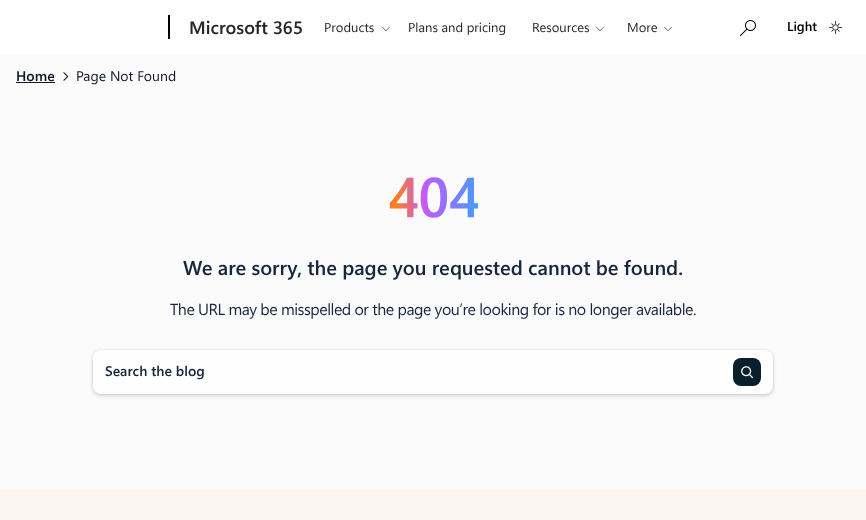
async function draw(canvas) {
  canvas.width = 866;
  canvas.height = 520;
  const ctx = canvas.getContext('2d');
  ctx.miterLimit = 4;
  ctx.fontKerning = 'normal';
  function label(s, x, y, font, color) {
    ctx.font = font;
    ctx.fillStyle = color;
    ctx.fillText(s, x, y);
  }
  function rect(x, y, w, h, color) {
    ctx.fillStyle = color;
    ctx.fillRect(x, y, w, h);
  }
  function roundedRect(x, y, w, h, r, color) {
    ctx.fillStyle = color;
    ctx.beginPath();
    ctx.roundRect(x, y, w, h, r);
    ctx.fill();
  }
  async function image(src, x, y, w, h) {
    const img = new Image();
    img.src = src;
    await img.decode();
    ctx.drawImage(img, x, y, w, h);
  }
  let gradient;

  rect(0, 0, 866, 520, '#fcfbfc');
  rect(0, 0, 866, 54, '#fff');
  rect(168, 15, 2, 24, '#000');
  label('Microsoft 365', 189, 34, '600 18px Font', '#262626');
  label('Products', 324, 32, '13px Font', '#262626');
  await image('assets/img1.png', 382, 26, 8, 5);
  label('Plans and pricing', 408, 32, '13px Font', '#262626');
  label('Resources', 532, 32, '13px Font', '#262626');
  await image('assets/img1.png', 596, 26, 8, 5);
  label('More', 627, 32, '13px Font', '#262626');
  await image('assets/img1.png', 664, 26, 8, 5);
  await image('assets/img2.png', 740, 20, 16, 16);
  label('Light', 787, 31, '600 13px Font', '#000');
  await image('assets/img3.png', 829, 21, 13, 13);
  label('Home', 16, 81, '600 14px Font', '#0e1726');
  rect(16, 82, 39, 1, '#0e1726');
  await image('assets/img4.png', 63, 72, 6, 9);
  label('Page Not Found', 76, 81, '14px Font', '#0e1726');
  ctx.letterSpacing = '-1px';
  ctx.font = '600 56px Font';
  gradient = ctx.createLinearGradient(388, 198, 478, 198);
  gradient.addColorStop(0.11, '#fe7b28');
  gradient.addColorStop(0.42, '#c05aff');
  gradient.addColorStop(1, '#469bff');
  ctx.fillStyle = gradient;
  ctx.fillText('404', 388, 217);
  ctx.letterSpacing = '0px';
  ctx.wordSpacing = '-0.25px';
  label('We are sorry, the page you requested cannot be found.', 183, 275, '600 20px Font', '#17253d');
  ctx.letterSpacing = '-0.48px';
  ctx.wordSpacing = '0px';
  label('The URL may be misspelled or the page you’re looking for is no longer available.', 170, 315, '16px "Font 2"', '#17253d');
  ctx.fillStyle = '#0000001f';
  ctx.filter = 'blur(1px)';
  ctx.beginPath();
  ctx.roundRect(93, 350, 680, 44, 8);
  ctx.fill();
  ctx.filter = 'none';
  ctx.fillStyle = '#00000024';
  ctx.filter = 'blur(2px)';
  ctx.beginPath();
  ctx.roundRect(93, 352, 680, 44, 8);
  ctx.fill();
  ctx.filter = 'none';
  roundedRect(93, 350, 680, 44, 8, '#fefefe');
  ctx.letterSpacing = '0px';
  label('Search the blog', 105, 376, '600 14px Font', '#17253d');
  roundedRect(733, 358, 28, 28, 8, '#091f2c');
  await image('assets/img5.png', 741, 366, 13, 13);
  rect(0, 490, 866, 30, '#faf5f1');
}

draw(document.querySelector('canvas'));
